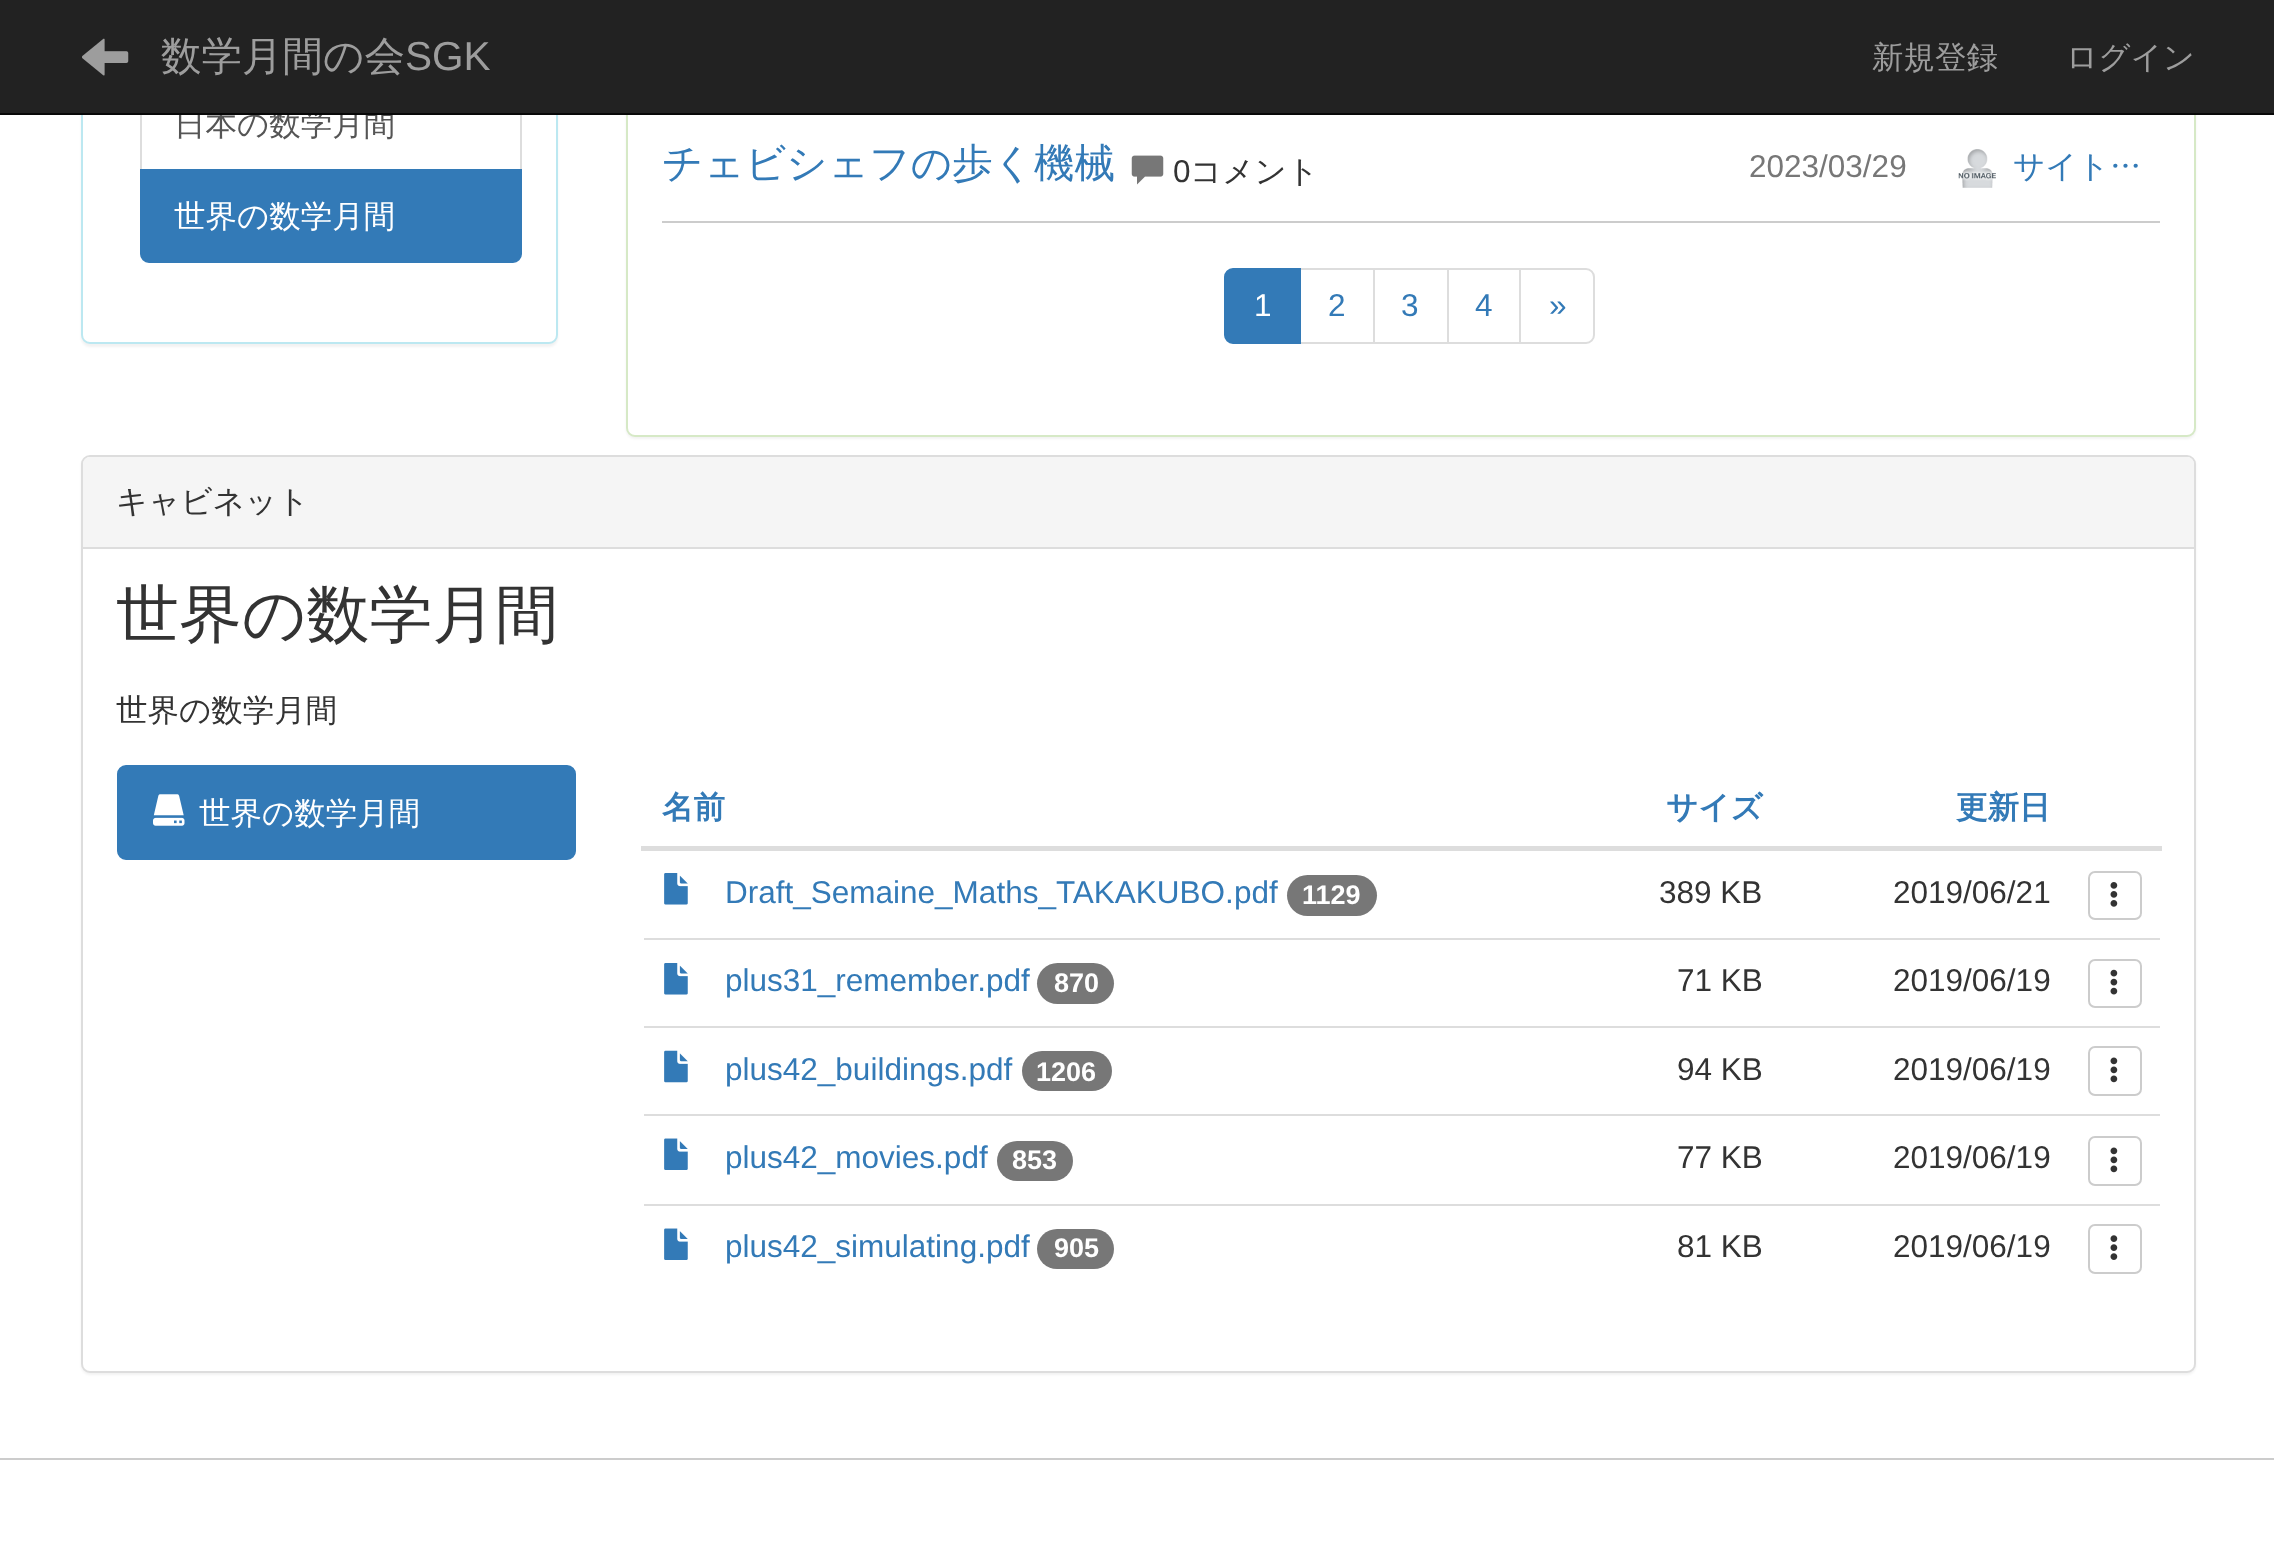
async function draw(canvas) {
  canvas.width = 2274;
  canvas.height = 1553;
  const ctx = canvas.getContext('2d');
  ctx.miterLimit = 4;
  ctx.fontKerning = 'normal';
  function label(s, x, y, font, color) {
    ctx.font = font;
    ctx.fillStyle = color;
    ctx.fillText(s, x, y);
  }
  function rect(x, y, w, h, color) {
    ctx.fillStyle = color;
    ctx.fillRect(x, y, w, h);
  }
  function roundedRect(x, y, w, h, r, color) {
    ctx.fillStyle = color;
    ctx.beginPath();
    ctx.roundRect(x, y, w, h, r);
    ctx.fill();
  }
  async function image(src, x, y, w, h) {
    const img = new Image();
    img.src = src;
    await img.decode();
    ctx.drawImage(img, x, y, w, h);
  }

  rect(0, 0, 2274, 1553, '#fff');
  ctx.fillStyle = '#0000000d';
  ctx.filter = 'blur(1px)';
  ctx.beginPath();
  ctx.roundRect(81, -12, 477, 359, 9);
  ctx.fill();
  ctx.filter = 'none';
  ctx.fillStyle = '#fff';
  ctx.beginPath();
  ctx.roundRect(82, -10, 475, 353, 8);
  ctx.fill();
  ctx.strokeStyle = '#bce8f1';
  ctx.lineWidth = 2;
  ctx.stroke();
  ctx.strokeStyle = '#ddd';
  ctx.strokeRect(141, 78, 380, 92);
  label('日本の数学月間', 174, 135, '500 31.5px WenQuanYi Zen Hei', '#555');
  ctx.fillStyle = '#0000000d';
  ctx.filter = 'blur(1px)';
  ctx.beginPath();
  ctx.roundRect(626, -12, 1570, 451, 9);
  ctx.fill();
  ctx.filter = 'none';
  ctx.fillStyle = '#fff';
  ctx.beginPath();
  ctx.roundRect(627, -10, 1568, 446, 8);
  ctx.fill();
  ctx.strokeStyle = '#d6e9c6';
  ctx.stroke();
  rect(0, 0, 2274, 113, '#222');
  rect(0, 113, 2274, 2, '#080808');
  await image('assets/img1.png', 82, 38, 47, 38);
  label('数学月間の会', 161, 70, '500 40.5px WenQuanYi Zen Hei', '#9d9d9d');
  label('SGK', 405, 70, '40.5px Liberation Sans', '#9d9d9d');
  label('新規登録', 1872, 68, '500 31.5px WenQuanYi Zen Hei', '#9d9d9d');
  label('ログイン', 2066, 68, '500 31.5px WenQuanYi Zen Hei', '#9d9d9d');
  ctx.fillStyle = '#337ab7';
  ctx.beginPath();
  ctx.roundRect(141, 170, 380, 92, [0, 0, 8, 8]);
  ctx.fill();
  ctx.strokeStyle = '#337ab7';
  ctx.stroke();
  label('世界の数学月間', 174, 227, '500 31.5px WenQuanYi Zen Hei', '#fff');
  rect(662, 221, 1498, 2, '#ccc');
  label('チェビシェフの歩く機械', 662, 177, '500 40.5px WenQuanYi Zen Hei', '#337ab7');
  await image('assets/img2.png', 1131, 155, 33, 30);
  label('0', 1173, 182, '31.5px Liberation Sans', '#333');
  label('コメント', 1190, 182, '500 31.5px WenQuanYi Zen Hei', '#333');
  label('2023/03/29', 1749, 177, '31.5px Liberation Sans', '#777');
  await image('assets/img3.png', 1958, 149, 38, 39);
  label('サイト…', 2013, 177, '500 31.5px WenQuanYi Zen Hei', '#337ab7');
  ctx.strokeStyle = '#ddd';
  ctx.strokeRect(1299, 269, 75, 74);
  ctx.beginPath();
  ctx.roundRect(1225, 269, 75, 74, [8, 0, 0, 8]);
  ctx.fill();
  ctx.strokeStyle = '#337ab7';
  ctx.stroke();
  label('1', 1254, 316, '31.5px Liberation Sans', '#fff');
  label('2', 1328, 316, '31.5px Liberation Sans', '#337ab7');
  ctx.strokeStyle = '#ddd';
  ctx.strokeRect(1374, 269, 74, 74);
  label('3', 1401, 316, '31.5px Liberation Sans', '#337ab7');
  ctx.strokeRect(1448, 269, 72, 74);
  label('4', 1475, 316, '31.5px Liberation Sans', '#337ab7');
  ctx.fillStyle = '#fff';
  ctx.beginPath();
  ctx.roundRect(1520, 269, 74, 74, [0, 8, 8, 0]);
  ctx.fill();
  ctx.stroke();
  label('»', 1549, 316, '31.5px Liberation Sans', '#337ab7');
  ctx.fillStyle = '#0000000d';
  ctx.filter = 'blur(1px)';
  ctx.beginPath();
  ctx.roundRect(81, 457, 2115, 918, 9);
  ctx.fill();
  ctx.filter = 'none';
  ctx.fillStyle = '#fff';
  ctx.beginPath();
  ctx.roundRect(82, 456, 2113, 916, 8);
  ctx.fill();
  ctx.stroke();
  ctx.fillStyle = '#f5f5f5';
  ctx.beginPath();
  ctx.roundRect(83, 457, 2111, 92, [7, 7, 0, 0]);
  ctx.fill();
  rect(83, 547, 2111, 2, '#ddd');
  label('キャビネット', 116, 512, '500 31.5px WenQuanYi Zen Hei', '#333');
  label('世界の数学月間', 116, 636, '500 63px WenQuanYi Zen Hei', '#333');
  label('世界の数学月間', 116, 721, '500 31.5px WenQuanYi Zen Hei', '#333');
  ctx.fillStyle = '#337ab7';
  ctx.beginPath();
  ctx.roundRect(118, 766, 457, 93, 8);
  ctx.fill();
  ctx.strokeStyle = '#337ab7';
  ctx.stroke();
  await image('assets/img4.png', 153, 794, 32, 32);
  label('世界の数学月間', 199, 824, '500 31.5px WenQuanYi Zen Hei', '#fff');
  label('名前', 662, 818, 'bold 31.5px WenQuanYi Zen Hei', '#337ab7');
  label('サイズ', 1666, 818, 'bold 31.5px WenQuanYi Zen Hei', '#337ab7');
  label('更新日', 1956, 818, 'bold 31.5px WenQuanYi Zen Hei', '#337ab7');
  rect(641, 846, 1521, 5, '#ddd');
  await image('assets/img5.png', 664, 873, 24, 32);
  label('Draft_Semaine_Maths_TAKAKUBO.pdf', 725, 903, '31.5px Liberation Sans', '#337ab7');
  roundedRect(1287, 875, 90, 41, 20.5, '#777');
  label('1129', 1302, 904, 'bold 27px Liberation Sans', '#fff');
  label('389 KB', 1659, 903, '31.5px Liberation Sans', '#333');
  label('2019/06/21', 1893, 903, '31.5px Liberation Sans', '#333');
  ctx.beginPath();
  ctx.roundRect(2089, 872, 52, 47, 6);
  ctx.strokeStyle = '#ccc';
  ctx.stroke();
  await image('assets/img6.png', 2110, 882, 8, 25);
  rect(644, 938, 1516, 2, '#ddd');
  ctx.beginPath();
  ctx.roundRect(2089, 960, 52, 47, 6);
  ctx.stroke();
  await image('assets/img7.png', 2110, 969, 8, 26);
  await image('assets/img5.png', 664, 963, 24, 32);
  label('plus31_remember.pdf', 725, 991, '31.5px Liberation Sans', '#337ab7');
  roundedRect(1037, 963, 77, 41, 20.5, '#777');
  label('870', 1054, 992, 'bold 27px Liberation Sans', '#fff');
  label('71 KB', 1677, 991, '31.5px Liberation Sans', '#333');
  label('2019/06/19', 1893, 991, '31.5px Liberation Sans', '#333');
  rect(644, 1026, 1516, 2, '#ddd');
  ctx.beginPath();
  ctx.roundRect(2089, 1047, 52, 48, 6);
  ctx.stroke();
  await image('assets/img8.png', 2110, 1057, 8, 26);
  await image('assets/img9.png', 664, 1050, 24, 33);
  label('plus42_buildings.pdf', 725, 1080, '31.5px Liberation Sans', '#337ab7');
  roundedRect(1022, 1051, 90, 40, 20, '#777');
  label('1206', 1036, 1081, 'bold 27px Liberation Sans', '#fff');
  label('94 KB', 1677, 1080, '31.5px Liberation Sans', '#333');
  label('2019/06/19', 1893, 1080, '31.5px Liberation Sans', '#333');
  rect(644, 1114, 1516, 2, '#ddd');
  ctx.beginPath();
  ctx.roundRect(2089, 1137, 52, 48, 6);
  ctx.stroke();
  await image('assets/img8.png', 2110, 1147, 8, 26);
  await image('assets/img10.png', 664, 1138, 24, 32);
  label('plus42_movies.pdf', 725, 1168, '31.5px Liberation Sans', '#337ab7');
  roundedRect(997, 1141, 76, 40, 20, '#777');
  label('853', 1012, 1169, 'bold 27px Liberation Sans', '#fff');
  label('77 KB', 1677, 1168, '31.5px Liberation Sans', '#333');
  label('2019/06/19', 1893, 1168, '31.5px Liberation Sans', '#333');
  rect(644, 1204, 1516, 2, '#ddd');
  ctx.beginPath();
  ctx.roundRect(2089, 1225, 52, 48, 6);
  ctx.stroke();
  await image('assets/img11.png', 2110, 1235, 8, 25);
  await image('assets/img10.png', 664, 1228, 24, 32);
  label('plus42_simulating.pdf', 725, 1257, '31.5px Liberation Sans', '#337ab7');
  roundedRect(1037, 1229, 77, 40, 20, '#777');
  label('905', 1054, 1257, 'bold 27px Liberation Sans', '#fff');
  label('81 KB', 1677, 1257, '31.5px Liberation Sans', '#333');
  label('2019/06/19', 1893, 1257, '31.5px Liberation Sans', '#333');
  rect(0, 1458, 2274, 2, '#ccc');
}

draw(document.querySelector('canvas'));
